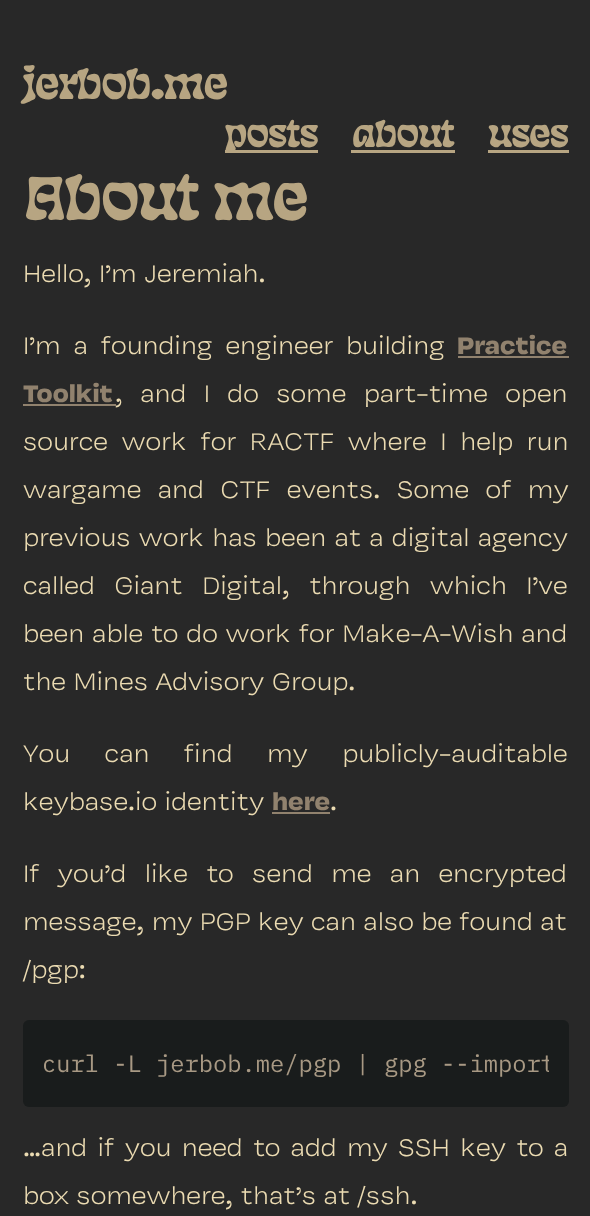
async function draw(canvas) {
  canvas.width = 590;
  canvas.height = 1216;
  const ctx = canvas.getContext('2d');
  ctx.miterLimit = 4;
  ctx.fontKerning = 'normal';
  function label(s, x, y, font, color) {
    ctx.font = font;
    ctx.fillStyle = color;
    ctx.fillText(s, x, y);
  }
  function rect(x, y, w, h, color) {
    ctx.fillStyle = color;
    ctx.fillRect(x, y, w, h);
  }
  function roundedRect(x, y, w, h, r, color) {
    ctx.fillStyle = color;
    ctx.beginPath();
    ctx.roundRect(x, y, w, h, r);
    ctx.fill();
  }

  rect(0, 0, 590, 1216, '#282828');
  label('jerbob.me', 23, 99, 'bold 44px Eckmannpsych', '#b7a582');
  rect(225, 150, 93, 3, '#b7a582');
  label('posts', 225, 147, 'bold 38.5px Eckmannpsych', '#b7a582');
  label('about', 352, 147, 'bold 38.5px Eckmannpsych', '#b7a582');
  rect(351, 150, 104, 3, '#b7a582');
  label('uses', 488, 147, 'bold 38.5px Eckmannpsych', '#b7a582');
  rect(488, 150, 81, 3, '#b7a582');
  label('About me', 23, 220, 'bold 65px Eckmannpsych', '#b7a582');
  label('Hello, I’m Jeremiah.', 23, 282, '300 26.4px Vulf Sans', '#ebdbb2');
  ctx.wordSpacing = '5.5px';
  label('I’m a founding engineer building', 23, 354, '300 26.4px Vulf Sans', '#ebdbb2');
  ctx.wordSpacing = '0px';
  label('Practice', 457, 354, 'bold 26.4px Vulf Sans', '#91826e');
  rect(458, 356, 111, 2, '#91826e');
  label('Toolkit', 23, 402, 'bold 26.4px Vulf Sans', '#91826e');
  rect(23, 404, 93, 2, '#91826e');
  ctx.wordSpacing = '10px';
  label(', and I do some part-time open', 115, 402, '300 26.4px Vulf Sans', '#ebdbb2');
  ctx.wordSpacing = '6.25px';
  label('source work for RACTF where I help run', 23, 450, '300 26.4px Vulf Sans', '#ebdbb2');
  ctx.wordSpacing = '9px';
  label('wargame and CTF events. Some of my', 23, 498, '300 26.4px Vulf Sans', '#ebdbb2');
  ctx.wordSpacing = '0.75px';
  label('previous work has been at a digital agency', 23, 546, '300 26.4px Vulf Sans', '#ebdbb2');
  ctx.wordSpacing = '12px';
  label('called Giant Digital, through which I’ve', 23, 594, '300 26.4px Vulf Sans', '#ebdbb2');
  ctx.wordSpacing = '0.5px';
  label('been able to do work for Make-A-Wish and', 23, 642, '300 26.4px Vulf Sans', '#ebdbb2');
  ctx.wordSpacing = '0px';
  label('the Mines Advisory Group.', 23, 690, '300 26.4px Vulf Sans', '#ebdbb2');
  ctx.wordSpacing = '27px';
  label('You can find my publicly-auditable', 23, 762, '300 26.4px Vulf Sans', '#ebdbb2');
  ctx.wordSpacing = '0px';
  label('keybase.io identity', 23, 810, '300 26.4px Vulf Sans', '#ebdbb2');
  label('here', 272, 810, 'bold 26.4px Vulf Sans', '#91826e');
  rect(272, 812, 58, 2, '#91826e');
  label('.', 330, 810, '300 26.4px Vulf Sans', '#ebdbb2');
  ctx.wordSpacing = '11px';
  label('If you’d like to send me an encrypted', 23, 882, '300 26.4px Vulf Sans', '#ebdbb2');
  ctx.wordSpacing = '0px';
  label('message, my PGP key can also be found at', 23, 930, '300 26.4px Vulf Sans', '#ebdbb2');
  label('/pgp:', 23, 978, '300 26.4px Vulf Sans', '#ebdbb2');
  roundedRect(23, 1020, 546, 87, 6, '#191c1c');
  label('curl -L jerbob.me/pgp | gpg', 42, 1072, '23.75px IBM Plex Mono', '#a89984');
  ctx.save();
  ctx.beginPath();
  ctx.roundRect(42, 1040, 507, 48, 6);
  ctx.clip();
  label('--import', 441, 1072, '23.75px IBM Plex Mono', '#a89984');
  ctx.restore();
  ctx.wordSpacing = '2.9px';
  label('…and if you need to add my SSH key to a', 23, 1156, '300 26.4px Vulf Sans', '#ebdbb2');
  ctx.wordSpacing = '0px';
  label('box somewhere, that’s at /ssh.', 23, 1204, '300 26.4px Vulf Sans', '#ebdbb2');
}

draw(document.querySelector('canvas'));
